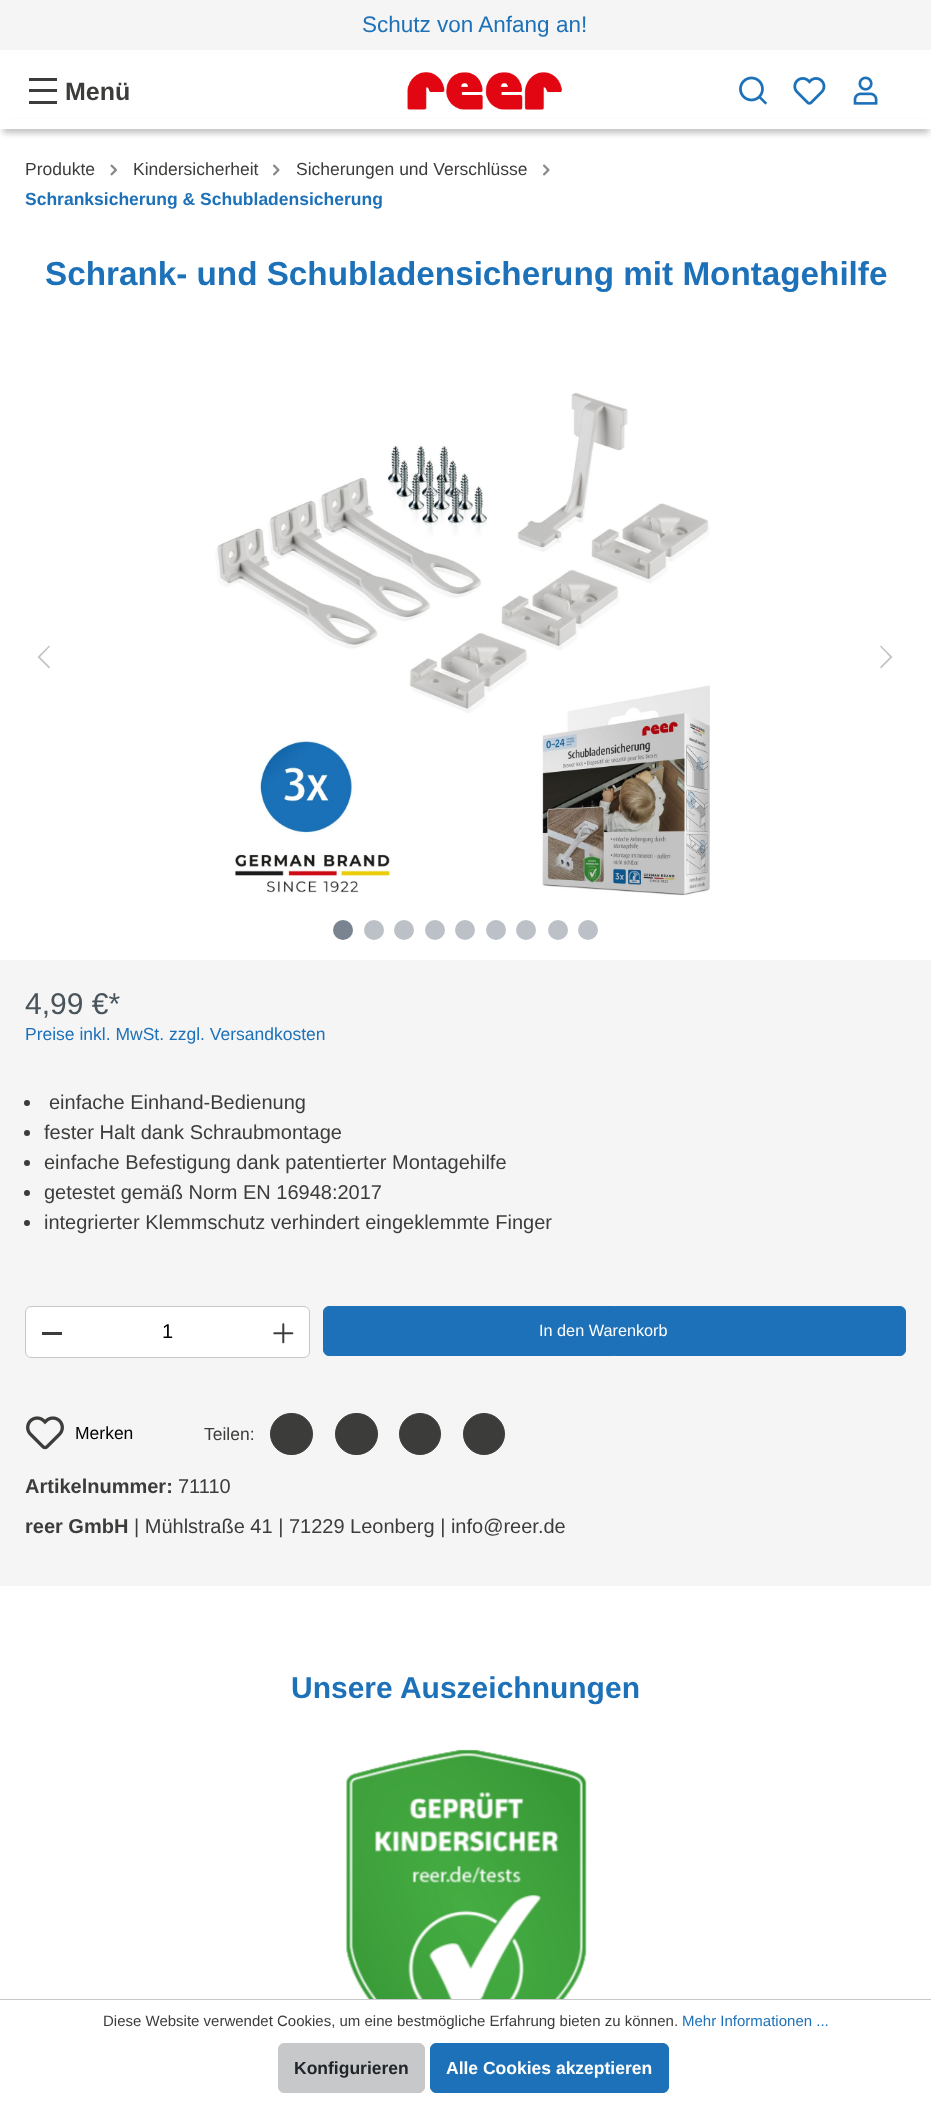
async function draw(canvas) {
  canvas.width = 931;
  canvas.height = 2102;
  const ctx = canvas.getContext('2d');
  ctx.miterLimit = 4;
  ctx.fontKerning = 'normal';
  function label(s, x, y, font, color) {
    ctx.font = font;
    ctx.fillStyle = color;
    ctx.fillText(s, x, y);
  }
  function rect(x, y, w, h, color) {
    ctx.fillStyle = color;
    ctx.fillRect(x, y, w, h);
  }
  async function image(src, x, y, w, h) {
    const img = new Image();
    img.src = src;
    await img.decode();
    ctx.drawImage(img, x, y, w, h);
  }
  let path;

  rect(0, 0, 931, 2102, '#fff');
  rect(0, 0, 931, 50, '#f5f5f5');
  label('Schutz von Anfang an!', 362, 32, '22.5px Liberation Sans', '#1d71b8');
  rect(29, 78, 28, 3, '#3c3c3b');
  rect(29, 89, 28, 3, '#3c3c3b');
  rect(29, 101, 28, 3, '#3c3c3b');
  label('Menü', 65, 100, 'bold 25px Liberation Sans', '#3c3c3b');
  await image('assets/img1.png', 407, 72, 155, 38);
  await image('assets/img2.png', 739, 76, 29, 29);
  await image('assets/img3.png', 793, 77, 33, 28);
  await image('assets/img4.png', 853, 76, 25, 29);
  ctx.fillStyle = '#00000040';
  ctx.filter = 'blur(3px)';
  ctx.beginPath();
  ctx.rect(3, 124, 926, 9);
  ctx.fill();
  ctx.filter = 'none';
  rect(0, 119, 931, 10, '#fff');
  label('Produkte', 25, 175, '17.5px Liberation Sans', '#3c3c3b');
  await image('assets/img5.png', 110, 164, 7, 12);
  label('Kindersicherheit', 133, 175, '17.5px Liberation Sans', '#3c3c3b');
  await image('assets/img6.png', 273, 164, 7, 12);
  label('Sicherungen und Verschlüsse', 296, 175, '17.5px Liberation Sans', '#3c3c3b');
  await image('assets/img6.png', 543, 164, 7, 12);
  label('Schranksicherung & Schubladensicherung', 25, 205, 'bold 17.5px Liberation Sans', '#1d71b8');
  label('Schrank- und Schubladensicherung mit Montagehilfe', 45, 285, 'bold 33.25px Liberation Sans', '#1d71b8');
  await image('assets/img7.png', 215, 392, 495, 504);
  ctx.fillStyle = '#c3c3c3';
  path = new Path2D('M49 645.5L50 646.5L40 657L50 667L49 668.5L37.5 657Z');
  ctx.fill(path, 'evenodd');
  path = new Path2D('M881 668.5L880 667L890 657L880 646.5L881 645.5L892.5 657Z');
  ctx.fill(path, 'evenodd');
  ctx.fillStyle = '#798490';
  ctx.beginPath();
  ctx.arc(343, 930, 10, 0, 2 * Math.PI);
  ctx.fill();
  ctx.fillStyle = '#bcc1c7';
  ctx.beginPath();
  ctx.arc(374, 930, 10, 0, 2 * Math.PI);
  ctx.fill();
  ctx.beginPath();
  ctx.arc(404, 930, 10, 0, 2 * Math.PI);
  ctx.fill();
  ctx.beginPath();
  ctx.arc(435, 930, 10, 0, 2 * Math.PI);
  ctx.fill();
  ctx.beginPath();
  ctx.arc(465, 930, 10, 0, 2 * Math.PI);
  ctx.fill();
  ctx.beginPath();
  ctx.arc(496, 930, 10, 0, 2 * Math.PI);
  ctx.fill();
  ctx.beginPath();
  ctx.arc(526, 930, 10, 0, 2 * Math.PI);
  ctx.fill();
  ctx.beginPath();
  ctx.arc(558, 930, 10, 0, 2 * Math.PI);
  ctx.fill();
  ctx.beginPath();
  ctx.arc(588, 930, 10, 0, 2 * Math.PI);
  ctx.fill();
  rect(0, 960, 931, 626, '#f5f5f5');
  label('4,99 €*', 25, 1014, '30px Liberation Sans', '#4a545b');
  label('Preise inkl. MwSt. zzgl. Versandkosten', 25, 1040, '17.5px Liberation Sans', '#1d71b8');
  ctx.fillStyle = '#3c3c3b';
  ctx.beginPath();
  ctx.arc(27, 1103, 3, 0, 2 * Math.PI);
  ctx.fill();
  label('einfache Einhand-Bedienung', 49, 1109, '20px Liberation Sans', '#3c3c3b');
  ctx.beginPath();
  ctx.arc(27, 1133, 3, 0, 2 * Math.PI);
  ctx.fill();
  label('fester Halt dank Schraubmontage', 44, 1139, '20px Liberation Sans', '#3c3c3b');
  ctx.beginPath();
  ctx.arc(27, 1163, 3, 0, 2 * Math.PI);
  ctx.fill();
  label('einfache Befestigung dank patentierter Montagehilfe', 44, 1169, '20px Liberation Sans', '#3c3c3b');
  ctx.beginPath();
  ctx.arc(27, 1193, 3, 0, 2 * Math.PI);
  ctx.fill();
  label('getestet gemäß Norm EN 16948:2017', 44, 1199, '20px Liberation Sans', '#3c3c3b');
  ctx.beginPath();
  ctx.arc(27, 1223, 3, 0, 2 * Math.PI);
  ctx.fill();
  label('integrierter Klemmschutz verhindert eingeklemmte Finger', 44, 1229, '20px Liberation Sans', '#3c3c3b');
  ctx.fillStyle = '#fff';
  ctx.beginPath();
  ctx.roundRect(25.5, 1306.5, 284, 51, 5.5);
  ctx.fill();
  ctx.strokeStyle = '#c7c8ca';
  ctx.stroke();
  rect(42, 1332, 20, 3, '#3c3c3b');
  label('1', 162, 1338, '20px Liberation Sans', '#000');
  await image('assets/img8.png', 273, 1323, 21, 21);
  ctx.fillStyle = '#1d71b8';
  ctx.beginPath();
  ctx.roundRect(323.5, 1306.5, 582, 49, 5.5);
  ctx.fill();
  ctx.strokeStyle = '#1d71b8';
  ctx.stroke();
  label('In den Warenkorb', 539, 1336, '16.25px Liberation Sans', '#fff');
  await image('assets/img9.png', 26, 1416, 38, 34);
  label('Merken', 75, 1439, '17.5px Liberation Sans', '#000');
  label('Teilen:', 204, 1440, '17.5px Liberation Sans', '#3c3c3b');
  ctx.beginPath();
  ctx.roundRect(270.5, 1413.5, 42, 41, 20.5);
  ctx.fill();
  ctx.strokeStyle = '#3c3c3b';
  ctx.stroke();
  ctx.beginPath();
  ctx.roundRect(335.5, 1413.5, 42, 41, 20.5);
  ctx.fill();
  ctx.stroke();
  ctx.beginPath();
  ctx.arc(420, 1434, 20.5, 0, 2 * Math.PI);
  ctx.fill();
  ctx.stroke();
  ctx.beginPath();
  ctx.arc(484, 1434, 20.5, 0, 2 * Math.PI);
  ctx.fill();
  ctx.stroke();
  label('Artikelnummer:', 25, 1493, 'bold 20px Liberation Sans', '#3c3c3b');
  label('71110', 178, 1493, '20px Liberation Sans', '#3c3c3b');
  label('reer GmbH', 25, 1533, 'bold 20px Liberation Sans', '#3c3c3b');
  label('| Mühlstraße 41 | 71229 Leonberg | info@reer.de', 134, 1533, '20px Liberation Sans', '#3c3c3b');
  label('Unsere Auszeichnungen', 291, 1698, 'bold 30px Liberation Sans', '#1d71b8');
  await image('assets/img10.png', 345, 1749, 242, 250);
  rect(0, 1999, 931, 1, '#c7c8ca');
  label('Diese Website verwendet Cookies, um eine bestmögliche Erfahrung bieten zu können.', 103, 2026, '15px Liberation Sans', '#3c3c3b');
  label('Mehr Informationen ...', 682, 2026, '15px Liberation Sans', '#1d71b8');
  ctx.fillStyle = '#c7c8ca';
  ctx.beginPath();
  ctx.roundRect(278.5, 2043.5, 146, 49, 5.5);
  ctx.fill();
  ctx.strokeStyle = '#c7c8ca';
  ctx.stroke();
  label('Konfigurieren', 294, 2074, 'bold 17.5px Liberation Sans', '#212529');
  ctx.fillStyle = '#1d71b8';
  ctx.beginPath();
  ctx.roundRect(430.5, 2043.5, 238, 49, 5.5);
  ctx.fill();
  ctx.strokeStyle = '#1d71b8';
  ctx.stroke();
  label('Alle Cookies akzeptieren', 446, 2074, 'bold 17.5px Liberation Sans', '#fff');
}

draw(document.querySelector('canvas'));
